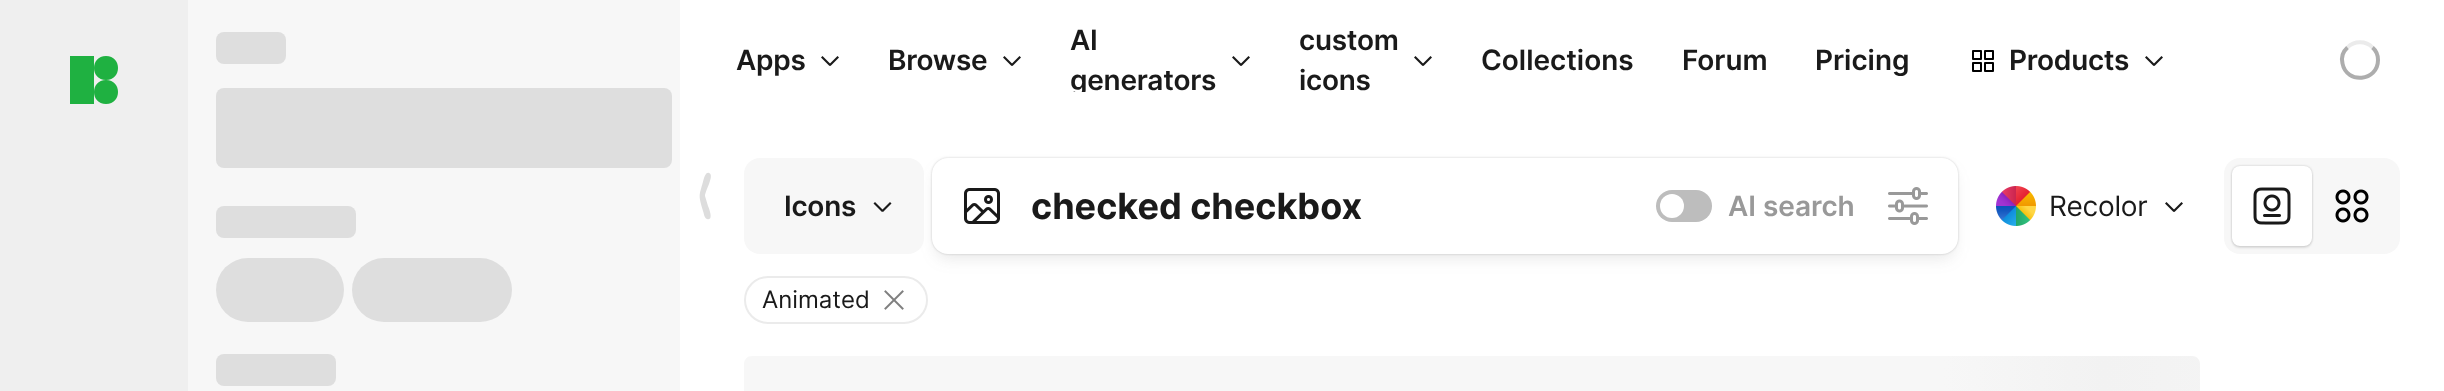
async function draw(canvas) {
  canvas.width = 2444;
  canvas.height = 391;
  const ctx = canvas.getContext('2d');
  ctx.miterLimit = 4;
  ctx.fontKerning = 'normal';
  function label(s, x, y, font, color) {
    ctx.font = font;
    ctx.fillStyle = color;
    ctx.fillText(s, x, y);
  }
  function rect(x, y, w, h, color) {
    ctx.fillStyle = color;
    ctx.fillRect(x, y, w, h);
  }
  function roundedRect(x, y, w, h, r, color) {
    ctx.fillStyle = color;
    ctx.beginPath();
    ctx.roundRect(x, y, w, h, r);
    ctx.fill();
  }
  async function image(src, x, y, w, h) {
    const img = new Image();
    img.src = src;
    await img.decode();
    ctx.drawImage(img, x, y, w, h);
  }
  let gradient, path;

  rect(0, 0, 2444, 391, '#fff');
  rect(0, 0, 188, 391, '#efefef');
  rect(70, 56, 24, 48, '#1fb141');
  path = new Path2D('M106 80C122 80 122 56 106 56C90 56 90 80 106 80ZM106 104C122 104 122 80 106 80C90 80 90 104 106 104Z');
  ctx.fill(path);
  rect(188, 0, 492, 391, '#f7f7f7');
  gradient = ctx.createLinearGradient(-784, 136, 1216, 136);
  gradient.addColorStop(0.1, '#dedede');
  gradient.addColorStop(0.18, '#ebebeb');
  gradient.addColorStop(0.33, '#dedede');
  ctx.fillStyle = gradient;
  ctx.beginPath();
  ctx.roundRect(216, 32, 70, 32, 8);
  ctx.fill();
  gradient = ctx.createLinearGradient(-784, 192, 1216, 192);
  gradient.addColorStop(0.1, '#dedede');
  gradient.addColorStop(0.18, '#ebebeb');
  gradient.addColorStop(0.33, '#dedede');
  ctx.fillStyle = gradient;
  ctx.beginPath();
  ctx.roundRect(216, 88, 456, 80, 8);
  ctx.fill();
  gradient = ctx.createLinearGradient(-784, 310, 1216, 310);
  gradient.addColorStop(0.1, '#dedede');
  gradient.addColorStop(0.18, '#ebebeb');
  gradient.addColorStop(0.33, '#dedede');
  ctx.fillStyle = gradient;
  ctx.beginPath();
  ctx.roundRect(216, 206, 140, 32, 8);
  ctx.fill();
  gradient = ctx.createLinearGradient(-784, 362, 1216, 362);
  gradient.addColorStop(0.1, '#dedede');
  gradient.addColorStop(0.18, '#ebebeb');
  gradient.addColorStop(0.33, '#dedede');
  ctx.fillStyle = gradient;
  ctx.beginPath();
  ctx.roundRect(216, 258, 128, 64, 32);
  ctx.fill();
  gradient = ctx.createLinearGradient(-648, 362, 1352, 362);
  gradient.addColorStop(0.1, '#dedede');
  gradient.addColorStop(0.18, '#ebebeb');
  gradient.addColorStop(0.33, '#dedede');
  ctx.fillStyle = gradient;
  ctx.beginPath();
  ctx.roundRect(352, 258, 160, 64, 32);
  ctx.fill();
  gradient = ctx.createLinearGradient(-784, 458, 1216, 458);
  gradient.addColorStop(0.1, '#dedede');
  gradient.addColorStop(0.18, '#ebebeb');
  gradient.addColorStop(0.33, '#dedede');
  ctx.fillStyle = gradient;
  ctx.beginPath();
  ctx.roundRect(216, 354, 120, 32, 8);
  ctx.fill();
  ctx.fillStyle = '#ddd';
  path = new Path2D('M709 173C715 175 705 191 705 196L708 206C709 208 714 221 707 219C704 218 704 213 703 211C698 193 699 197 704 178C705 176 706 172 709 173Z');
  ctx.fill(path, 'evenodd');
  ctx.letterSpacing = '-0.25px';
  label('Apps', 736, 70, '600 28px Inter', '#1a1a1a');
  path = new Path2D('M822.5 56L831 64.5L829.5 66L821 57.5Z');
  ctx.fill(path);
  path = new Path2D('M829 64.5L837.5 56L839 57.5L830.5 66Z');
  ctx.fill(path);
  label('Browse', 888, 70, '600 28px Inter', '#1a1a1a');
  path = new Path2D('M1004.5 56L1013 64.5L1011.5 66L1003 57.5Z');
  ctx.fill(path);
  path = new Path2D('M1011 64.5L1019.5 56L1021 57.5L1012.5 66Z');
  ctx.fill(path);
  label('AI', 1070, 50, '600 28px Inter', '#1a1a1a');
  ctx.save();
  ctx.beginPath();
  ctx.rect(712, 28, 1212, 64);
  ctx.clip();
  label('generators', 1070, 90, '600 28px Inter', '#1a1a1a');
  ctx.restore();
  path = new Path2D('M1233.5 56L1242 64.5L1240.5 66L1232 57.5Z');
  ctx.fill(path);
  path = new Path2D('M1240 64.5L1248.5 56L1250 57.5L1241.5 66Z');
  ctx.fill(path);
  label('custom', 1299, 50, '600 28px Inter', '#1a1a1a');
  label('icons', 1299, 90, '600 28px Inter', '#1a1a1a');
  path = new Path2D('M1415.5 56L1424 64.5L1422.5 66L1414 57.5Z');
  ctx.fill(path);
  path = new Path2D('M1422 64.5L1430.5 56L1432 57.5L1423.5 66Z');
  ctx.fill(path);
  ctx.letterSpacing = '0px';
  label('Collections', 1481, 70, '600 28px Inter', '#1a1a1a');
  label('Forum', 1682, 70, '600 28px Inter', '#1a1a1a');
  label('Pricing', 1815, 70, '600 28px Inter', '#1a1a1a');
  await image('assets/img1.png', 1972, 50, 22, 22);
  ctx.letterSpacing = '-0.25px';
  label('Products', 2009, 70, '600 28px Inter', '#1a1a1a');
  path = new Path2D('M2146.5 56L2155 64.5L2153.5 66L2145 57.5Z');
  ctx.fill(path);
  path = new Path2D('M2153 64.5L2161.5 56L2163 57.5L2154.5 66Z');
  ctx.fill(path);
  path = new Path2D('M2347.5 47.5C2354 40.5 2366 40.5 2372.5 47.5');
  ctx.strokeStyle = '#ebebeb';
  ctx.lineWidth = 4;
  ctx.stroke(path);
  path = new Path2D('M2372.5 47.5C2376 50.5 2378 55.5 2378 60C2378 81.5 2346.5 84.5 2342.5 63.5C2341 57.5 2343 51.5 2347.5 47.5');
  ctx.strokeStyle = '#999999cc';
  ctx.stroke(path);
  ctx.beginPath();
  ctx.roundRect(745, 277, 182, 46, 23);
  ctx.strokeStyle = '#ebebeb';
  ctx.lineWidth = 2;
  ctx.stroke();
  ctx.fillStyle = '#60606026';
  ctx.filter = 'blur(8px)';
  ctx.beginPath();
  ctx.roundRect(936, 170, 1018, 88, 12);
  ctx.fill();
  ctx.filter = 'none';
  roundedRect(744, 158, 180, 96, 16, '#f7f7f7');
  label('Icons', 784, 216, '600 28px Inter', '#1a1a1a');
  path = new Path2D('M875 202L883.5 210.5L882 212L873.5 203.5Z');
  ctx.fill(path);
  path = new Path2D('M881.5 210.5L890 202L891.5 203.5L883 212Z');
  ctx.fill(path);
  ctx.fillStyle = '#6060604f';
  ctx.filter = 'blur(1px)';
  ctx.beginPath();
  ctx.roundRect(932, 158, 1026, 96, 16);
  ctx.fill();
  ctx.filter = 'none';
  roundedRect(932, 158, 1026, 96, 16, '#fff');
  await image('assets/img2.png', 964, 188, 36, 36);
  ctx.letterSpacing = '0px';
  label('checked checkbox', 1031, 219, 'bold 36px Inter', '#1a1a1a');
  roundedRect(1656, 190, 56, 32, 16, '#bdbdbd');
  ctx.fillStyle = '#fff';
  ctx.beginPath();
  ctx.arc(1672, 206, 12, 0, 2 * Math.PI);
  ctx.fill();
  label('AI search', 1728, 216, '600 28px Inter', '#999');
  await image('assets/img3.png', 1888, 187, 40, 38);
  await image('assets/img4.png', 1996, 186, 40, 40);
  ctx.letterSpacing = '-0.25px';
  label('Recolor', 2049, 216, '28px Inter', '#1a1a1a');
  path = new Path2D('M2166.5 202L2175 210.5L2173.5 212L2165 203.5Z');
  ctx.fill(path);
  path = new Path2D('M2173 210.5L2181.5 202L2183 203.5L2174.5 212Z');
  ctx.fill(path);
  roundedRect(2224, 158, 176, 96, 16, '#f7f7f7');
  ctx.fillStyle = '#60606026';
  ctx.filter = 'blur(1px)';
  ctx.beginPath();
  ctx.roundRect(2232, 168, 80, 80, 8);
  ctx.fill();
  ctx.filter = 'none';
  ctx.fillStyle = '#6060604f';
  ctx.filter = 'blur(1px)';
  ctx.beginPath();
  ctx.roundRect(2232, 166, 80, 80, 8);
  ctx.fill();
  ctx.filter = 'none';
  roundedRect(2232, 166, 80, 80, 8, '#fff');
  await image('assets/img5.png', 2253, 187, 38, 38);
  await image('assets/img6.png', 2335, 189, 34, 34);
  ctx.letterSpacing = '0px';
  label('Animated', 762, 308, '24px Inter', '#1a1a1a');
  await image('assets/img7.png', 884, 290, 20, 20);
  gradient = ctx.createLinearGradient(-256, 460, 1744, 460);
  gradient.addColorStop(0.1, '#f7f7f7');
  gradient.addColorStop(0.18, '#f2f2f2');
  gradient.addColorStop(0.33, '#f7f7f7');
  ctx.fillStyle = gradient;
  path = new Path2D('M752 356H1744V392H744V364C744 359.5 747.5 356 752 356Z');
  ctx.fill(path);
  gradient = ctx.createLinearGradient(1744, 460, 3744, 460);
  gradient.addColorStop(0.1, '#f7f7f7');
  gradient.addColorStop(0.18, '#f2f2f2');
  gradient.addColorStop(0.33, '#f7f7f7');
  ctx.fillStyle = gradient;
  path = new Path2D('M1744 356H2192C2196.5 356 2200 359.5 2200 364V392H1744Z');
  ctx.fill(path);
}

draw(document.querySelector('canvas'));
